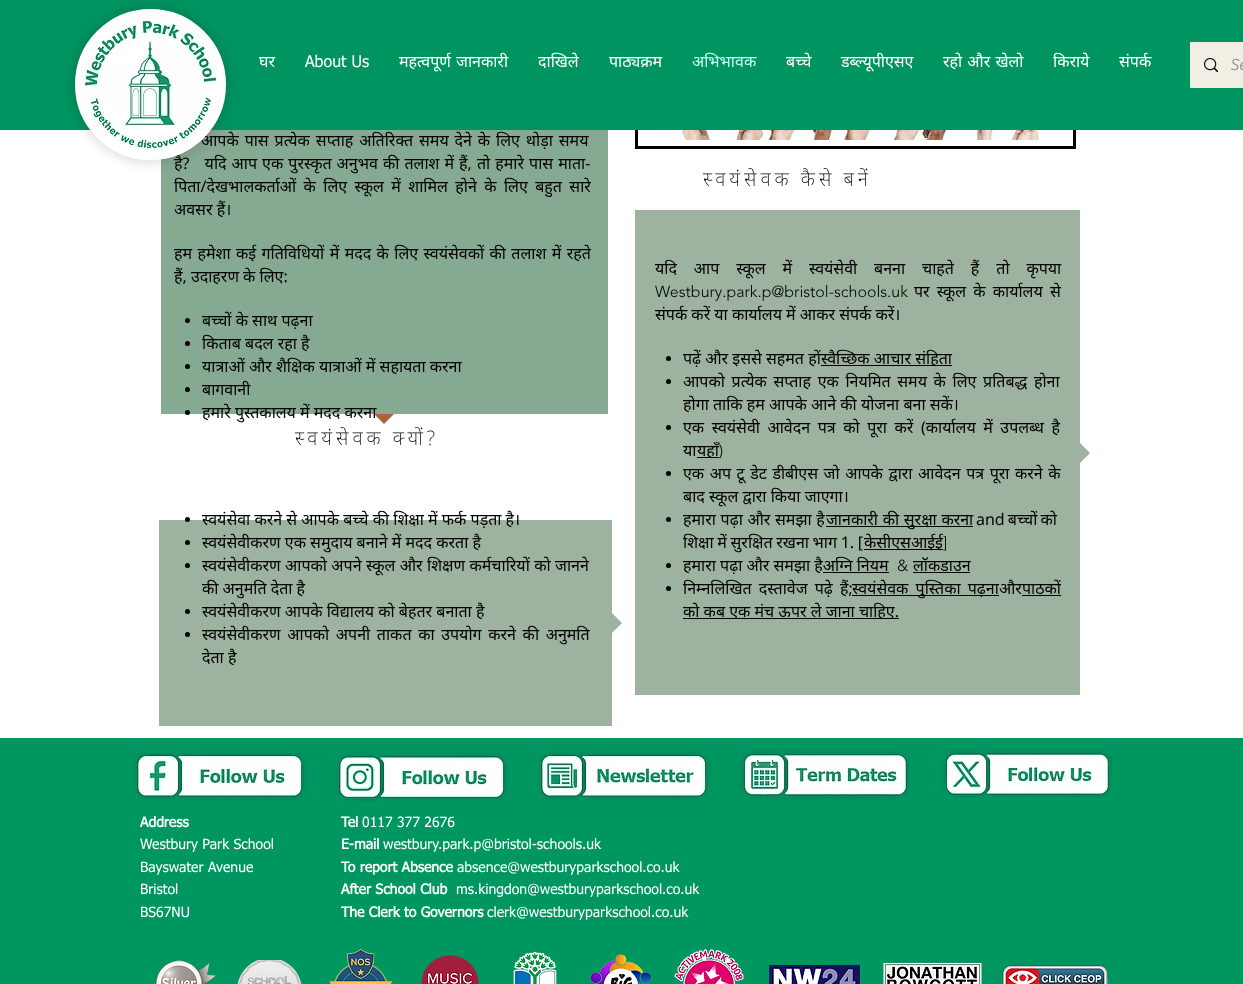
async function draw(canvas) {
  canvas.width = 1243;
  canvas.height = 984;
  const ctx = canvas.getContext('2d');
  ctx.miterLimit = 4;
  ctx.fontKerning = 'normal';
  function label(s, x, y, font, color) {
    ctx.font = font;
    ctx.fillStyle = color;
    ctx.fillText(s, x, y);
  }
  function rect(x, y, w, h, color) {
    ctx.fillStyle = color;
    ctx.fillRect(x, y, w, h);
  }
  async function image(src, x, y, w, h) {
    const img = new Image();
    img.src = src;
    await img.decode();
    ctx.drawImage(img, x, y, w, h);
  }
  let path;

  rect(0, 0, 1243, 984, '#fff');
  ctx.strokeStyle = '#000';
  ctx.lineWidth = 3;
  ctx.strokeRect(636.5, 36.5, 438, 111);
  rect(0, 0, 1243, 130, '#009460');
  rect(161, 130, 447, 284, '#86a992');
  ctx.fillStyle = '#00000033';
  ctx.filter = 'blur(7px)';
  ctx.beginPath();
  ctx.roundRect(75, 9, 151, 151, 75.5);
  ctx.fill();
  ctx.filter = 'none';
  ctx.wordSpacing = '1.75px';
  label('आपके पास प्रत्येक सप्ताह अतिरिक्त समय देने के लिए थोड़ा समय', 201, 146, '16px Noto Sans', '#000');
  ctx.wordSpacing = '0.9px';
  label('है?   यदि आप एक पुरस्कृत अनुभव की तलाश में हैं, तो हमारे पास माता-', 174, 169, '16px Noto Sans', '#000');
  ctx.fillStyle = '#fff';
  ctx.beginPath();
  ctx.arc(150.5, 84.5, 72.5, 0, 2 * Math.PI);
  ctx.fill();
  ctx.strokeStyle = '#fff';
  ctx.lineWidth = 6;
  ctx.stroke();
  await image('assets/img1.png', 81, 15, 139, 137);
  ctx.wordSpacing = '0px';
  label('घर', 259, 67, '16px Noto Sans', '#fff');
  label('About Us', 305, 67, '16px tahoma', '#fff');
  ctx.wordSpacing = '1px';
  label('महत्वपूर्ण जानकारी', 399, 67, '16px Noto Sans', '#fff');
  ctx.wordSpacing = '0px';
  label('दाखिले', 538, 67, '16px Noto Sans', '#fff');
  label('पाठ्यक्रम', 609, 67, '16px Noto Sans', '#fff');
  label('अभिभावक', 692, 67, '16px Noto Sans', '#c2fff5');
  label('बच्चे', 786, 67, '16px Noto Sans', '#fff');
  label('डब्ल्यूपीएसए', 841, 67, '16px Noto Sans', '#fff');
  ctx.wordSpacing = '1px';
  label('रहो और खेलो', 943, 67, '16px Noto Sans', '#fff');
  ctx.wordSpacing = '0px';
  label('किराये', 1053, 67, '16px Noto Sans', '#fff');
  label('संपर्क', 1119, 67, '16px Noto Sans', '#fff');
  rect(1190, 42, 53, 46, '#f2eee4');
  await image('assets/img2.png', 1204, 58, 14, 14);
  label('Se', 1230, 70, 'bold 16px "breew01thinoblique"', '#999');
  await image('assets/img3.png', 660, 130, 388, 10);
  ctx.fillStyle = '#ae633f';
  path = new Path2D('M374 414H394L384 424Z');
  ctx.fill(path);
  ctx.wordSpacing = '3.25px';
  label('पिता/देखभालकर्ताओं के लिए स्कूल में शामिल होने के लिए बहुत सारे', 174, 192, '16px Noto Sans', '#000');
  ctx.wordSpacing = '0px';
  label('अवसर हैं।', 174, 215, '16px Noto Sans', '#000');
  ctx.wordSpacing = '1.25px';
  label('हम हमेशा कई गतिविधियों में मदद के लिए स्वयंसेवकों की तलाश में रहते', 174, 259, '16px Noto Sans', '#000');
  ctx.wordSpacing = '0px';
  label('हैं, उदाहरण के लिए:', 174, 282, '16px Noto Sans', '#000');
  ctx.beginPath();
  ctx.arc(187.5, 320.5, 2.5, 0, 2 * Math.PI);
  ctx.fill();
  label('बच्चों के साथ पढ़ना', 202, 326, '16px Noto Sans', '#000');
  ctx.beginPath();
  ctx.arc(187.5, 343.5, 2.5, 0, 2 * Math.PI);
  ctx.fill();
  label('किताब बदल रहा है', 202, 349, '16px Noto Sans', '#000');
  ctx.beginPath();
  ctx.arc(187.5, 366.5, 2.5, 0, 2 * Math.PI);
  ctx.fill();
  label('यात्राओं और शैक्षिक यात्राओं में सहायता करना', 202, 372, '16px Noto Sans', '#000');
  ctx.beginPath();
  ctx.arc(187.5, 389.5, 2.5, 0, 2 * Math.PI);
  ctx.fill();
  label('बागवानी', 202, 395, '16px Noto Sans', '#000');
  ctx.beginPath();
  ctx.arc(187.5, 412.5, 2.5, 0, 2 * Math.PI);
  ctx.fill();
  label('हमारे पुस्तकालय में मदद करना', 202, 418, '16px Noto Sans', '#000');
  rect(159, 520, 453, 206, '#9db39f');
  ctx.fillStyle = '#000';
  ctx.beginPath();
  ctx.arc(187.5, 519.5, 2.5, 0, 2 * Math.PI);
  ctx.fill();
  label('स्वयंसेवा करने से आपके बच्चे की शिक्षा में फर्क पड़ता है।', 202, 525, '16px Noto Sans', '#000');
  ctx.beginPath();
  ctx.arc(187.5, 542.5, 2.5, 0, 2 * Math.PI);
  ctx.fill();
  label('स्वयंसेवीकरण एक समुदाय बनाने में मदद करता है', 202, 548, '16px Noto Sans', '#000');
  ctx.beginPath();
  ctx.arc(187.5, 565.5, 2.5, 0, 2 * Math.PI);
  ctx.fill();
  ctx.wordSpacing = '0.25px';
  label('स्वयंसेवीकरण आपको अपने स्कूल और शिक्षण कर्मचारियों को जानने', 202, 571, '16px Noto Sans', '#000');
  ctx.wordSpacing = '0px';
  label('की अनुमति देता है', 202, 594, '16px Noto Sans', '#000');
  ctx.beginPath();
  ctx.arc(187.5, 611.5, 2.5, 0, 2 * Math.PI);
  ctx.fill();
  label('स्वयंसेवीकरण आपके विद्यालय को बेहतर बनाता है', 202, 617, '16px Noto Sans', '#000');
  ctx.beginPath();
  ctx.arc(187.5, 634.5, 2.5, 0, 2 * Math.PI);
  ctx.fill();
  ctx.wordSpacing = '2.5px';
  label('स्वयंसेवीकरण आपको अपनी ताकत का उपयोग करने की अनुमति', 202, 640, '16px Noto Sans', '#000');
  ctx.wordSpacing = '0px';
  label('देता है', 202, 663, '16px Noto Sans', '#000');
  ctx.letterSpacing = '4px';
  ctx.wordSpacing = '-1px';
  label('स्वयंसेवक क्यों?', 295, 445, '200 20px Noto Sans', '#000');
  ctx.fillStyle = '#9db39f';
  path = new Path2D('M612 633V613L622 623Z');
  ctx.fill(path);
  label('स्वयंसेवक कैसे बनें', 703, 186, '200 20px Noto Sans', '#000');
  rect(635, 210, 445, 485, '#9db39f');
  ctx.letterSpacing = '0px';
  ctx.wordSpacing = '12.75px';
  label('यदि आप स्कूल में स्वयंसेवी बनना चाहते हैं तो कृपया', 655, 274, '16px Noto Sans', '#000');
  ctx.wordSpacing = '0px';
  label('Westbury.park.p@bristol-schools.uk', 655, 297, '300 16px "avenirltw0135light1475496"', '#000');
  ctx.wordSpacing = '3px';
  label('पर स्कूल के कार्यालय से', 914, 297, '16px Noto Sans', '#000');
  ctx.wordSpacing = '0px';
  label('संपर्क करें या कार्यालय में आकर संपर्क करें।', 655, 320, '16px Noto Sans', '#000');
  ctx.beginPath();
  ctx.arc(668.5, 358.5, 2.5, 0, 2 * Math.PI);
  ctx.fill();
  label('पढ़ें और इससे सहमत हों', 683, 364, '16px Noto Sans', '#000');
  rect(821, 365, 131, 1, '#000');
  label('स्वैच्छिक आचार संहिता', 821, 364, '16px Noto Sans', '#000');
  ctx.beginPath();
  ctx.arc(668.5, 381.5, 2.5, 0, 2 * Math.PI);
  ctx.fill();
  ctx.wordSpacing = '2.5px';
  label('आपको प्रत्येक सप्ताह एक नियमित समय के लिए प्रतिबद्ध होना', 683, 387, '16px Noto Sans', '#000');
  ctx.wordSpacing = '0px';
  label('होगा ताकि हम आपके आने की योजना बना सकें।', 683, 410, '16px Noto Sans', '#000');
  ctx.beginPath();
  ctx.arc(668.5, 427.5, 2.5, 0, 2 * Math.PI);
  ctx.fill();
  ctx.wordSpacing = '3.4px';
  label('एक स्वयंसेवी आवेदन पत्र को पूरा करें (कार्यालय में उपलब्ध है', 683, 433, '16px Noto Sans', '#000');
  ctx.wordSpacing = '0px';
  label('या', 683, 456, '16px Noto Sans', '#000');
  rect(697, 457, 22, 1, '#000');
  label('यहाँ', 697, 456, '16px Noto Sans', '#000');
  label(')', 719, 456, '300 16px "avenirltw0135light1475496"', '#000');
  ctx.beginPath();
  ctx.arc(668.5, 473.5, 2.5, 0, 2 * Math.PI);
  ctx.fill();
  ctx.wordSpacing = '1.4px';
  label('एक अप टू डेट डीबीएस जो आपके द्वारा आवेदन पत्र पूरा करने के', 683, 479, '16px Noto Sans', '#000');
  ctx.wordSpacing = '0px';
  label('बाद स्कूल द्वारा किया जाएगा।', 683, 502, '16px Noto Sans', '#000');
  ctx.beginPath();
  ctx.arc(668.5, 519.5, 2.5, 0, 2 * Math.PI);
  ctx.fill();
  ctx.wordSpacing = '0.5px';
  label('हमारा पढ़ा और समझा है', 683, 525, '16px Noto Sans', '#000');
  rect(826, 526, 147, 1, '#000');
  label('जानकारी की सुरक्षा करना', 826, 525, '16px Noto Sans', '#000');
  ctx.wordSpacing = '-1px';
  label('and बच्चों को', 976, 525, '16px Noto Sans', '#000');
  ctx.wordSpacing = '-0.5px';
  label('शिक्षा में सुरक्षित रखना भाग 1. [', 683, 548, '16px Noto Sans', '#000');
  rect(864, 549, 79, 1, '#000');
  ctx.wordSpacing = '0px';
  label('केसीएसआईई', 864, 548, '16px Noto Sans', '#000');
  label(']', 943, 548, '300 16px "avenirltw0135light1475496"', '#000');
  ctx.beginPath();
  ctx.arc(668.5, 565.5, 2.5, 0, 2 * Math.PI);
  ctx.fill();
  label('हमारा पढ़ा और समझा हैअग्नि नियम', 683, 571, '16px Noto Sans', '#000');
  rect(823, 572, 66, 1, '#000');
  label('&', 897, 571, '300 16px "avenirltw0135light1475496"', '#000');
  label('लॉकडाउन', 913, 571, '16px Noto Sans', '#000');
  rect(913, 572, 57, 1, '#000');
  ctx.beginPath();
  ctx.arc(668.5, 588.5, 2.5, 0, 2 * Math.PI);
  ctx.fill();
  ctx.wordSpacing = '3px';
  label('निम्नलिखित दस्तावेज पढ़े हैं;', 683, 594, '16px Noto Sans', '#000');
  rect(852, 595, 147, 1, '#000');
  label('स्वयंसेवक पुस्तिका पढ़ना', 852, 594, '16px Noto Sans', '#000');
  ctx.wordSpacing = '0px';
  label('औरपाठकों', 999, 594, '16px Noto Sans', '#000');
  rect(1022, 595, 39, 1, '#000');
  rect(683, 618, 216, 1, '#000');
  label('को कब एक मंच ऊपर ले जाना चाहिए.', 683, 617, '16px Noto Sans', '#000');
  ctx.fillStyle = '#9db39f';
  path = new Path2D('M1080 463V443L1090 453Z');
  ctx.fill(path);
  rect(0, 743, 1243, 241, '#009660');
  rect(0, 738, 1243, 5, '#009460');
  await image('assets/img4.png', 133, 748, 174, 52);
  await image('assets/img5.png', 334, 752, 175, 50);
  await image('assets/img6.png', 536, 748, 175, 53);
  await image('assets/img7.png', 738, 748, 172, 52);
  await image('assets/img8.png', 940, 748, 172, 50);
  label('Address', 140, 827, 'bold 14px tahoma', '#fff');
  label('Westbury Park School', 140, 849, '14px tahoma', '#fff');
  label('Bayswater Avenue', 140, 872, '14px tahoma', '#fff');
  label('Bristol', 140, 894, '14px tahoma', '#fff');
  label('BS67NU', 140, 917, '14px tahoma', '#fff');
  label('Tel', 341, 827, 'bold 14px tahoma', '#fff');
  label('0117 377 2676', 362, 827, '14px tahoma', '#fff');
  label('E-mail', 341, 849, 'bold 14px tahoma', '#fff');
  label('westbury.park.p@bristol-schools.uk', 383, 849, '14px tahoma', '#fff');
  label('To report Absence', 341, 872, 'bold 14px tahoma', '#fff');
  label('absence@westburyparkschool.co.uk', 457, 872, '14px tahoma', '#fff');
  label('After School Club', 341, 894, 'bold 14px tahoma', '#fff');
  label('ms.kingdon@westburyparkschool.co.uk', 456, 894, '14px tahoma', '#fff');
  label('The Clerk to Governors', 341, 917, 'bold 14px tahoma', '#fff');
  label('clerk@westburyparkschool.co.uk', 487, 917, '14px tahoma', '#fff');
  await image('assets/img9.png', 153, 960, 63, 24);
  await image('assets/img10.png', 237, 960, 65, 24);
  await image('assets/img11.png', 329, 949, 63, 35);
  await image('assets/img12.png', 421, 955, 58, 29);
  await image('assets/img13.png', 513, 951, 44, 33);
  await image('assets/img14.png', 590, 954, 62, 30);
  await image('assets/img15.png', 674, 949, 70, 35);
  await image('assets/img16.png', 769, 964, 92, 20);
  await image('assets/img17.png', 883, 962, 99, 22);
  await image('assets/img18.png', 1002, 965, 106, 19);
}

draw(document.querySelector('canvas'));
